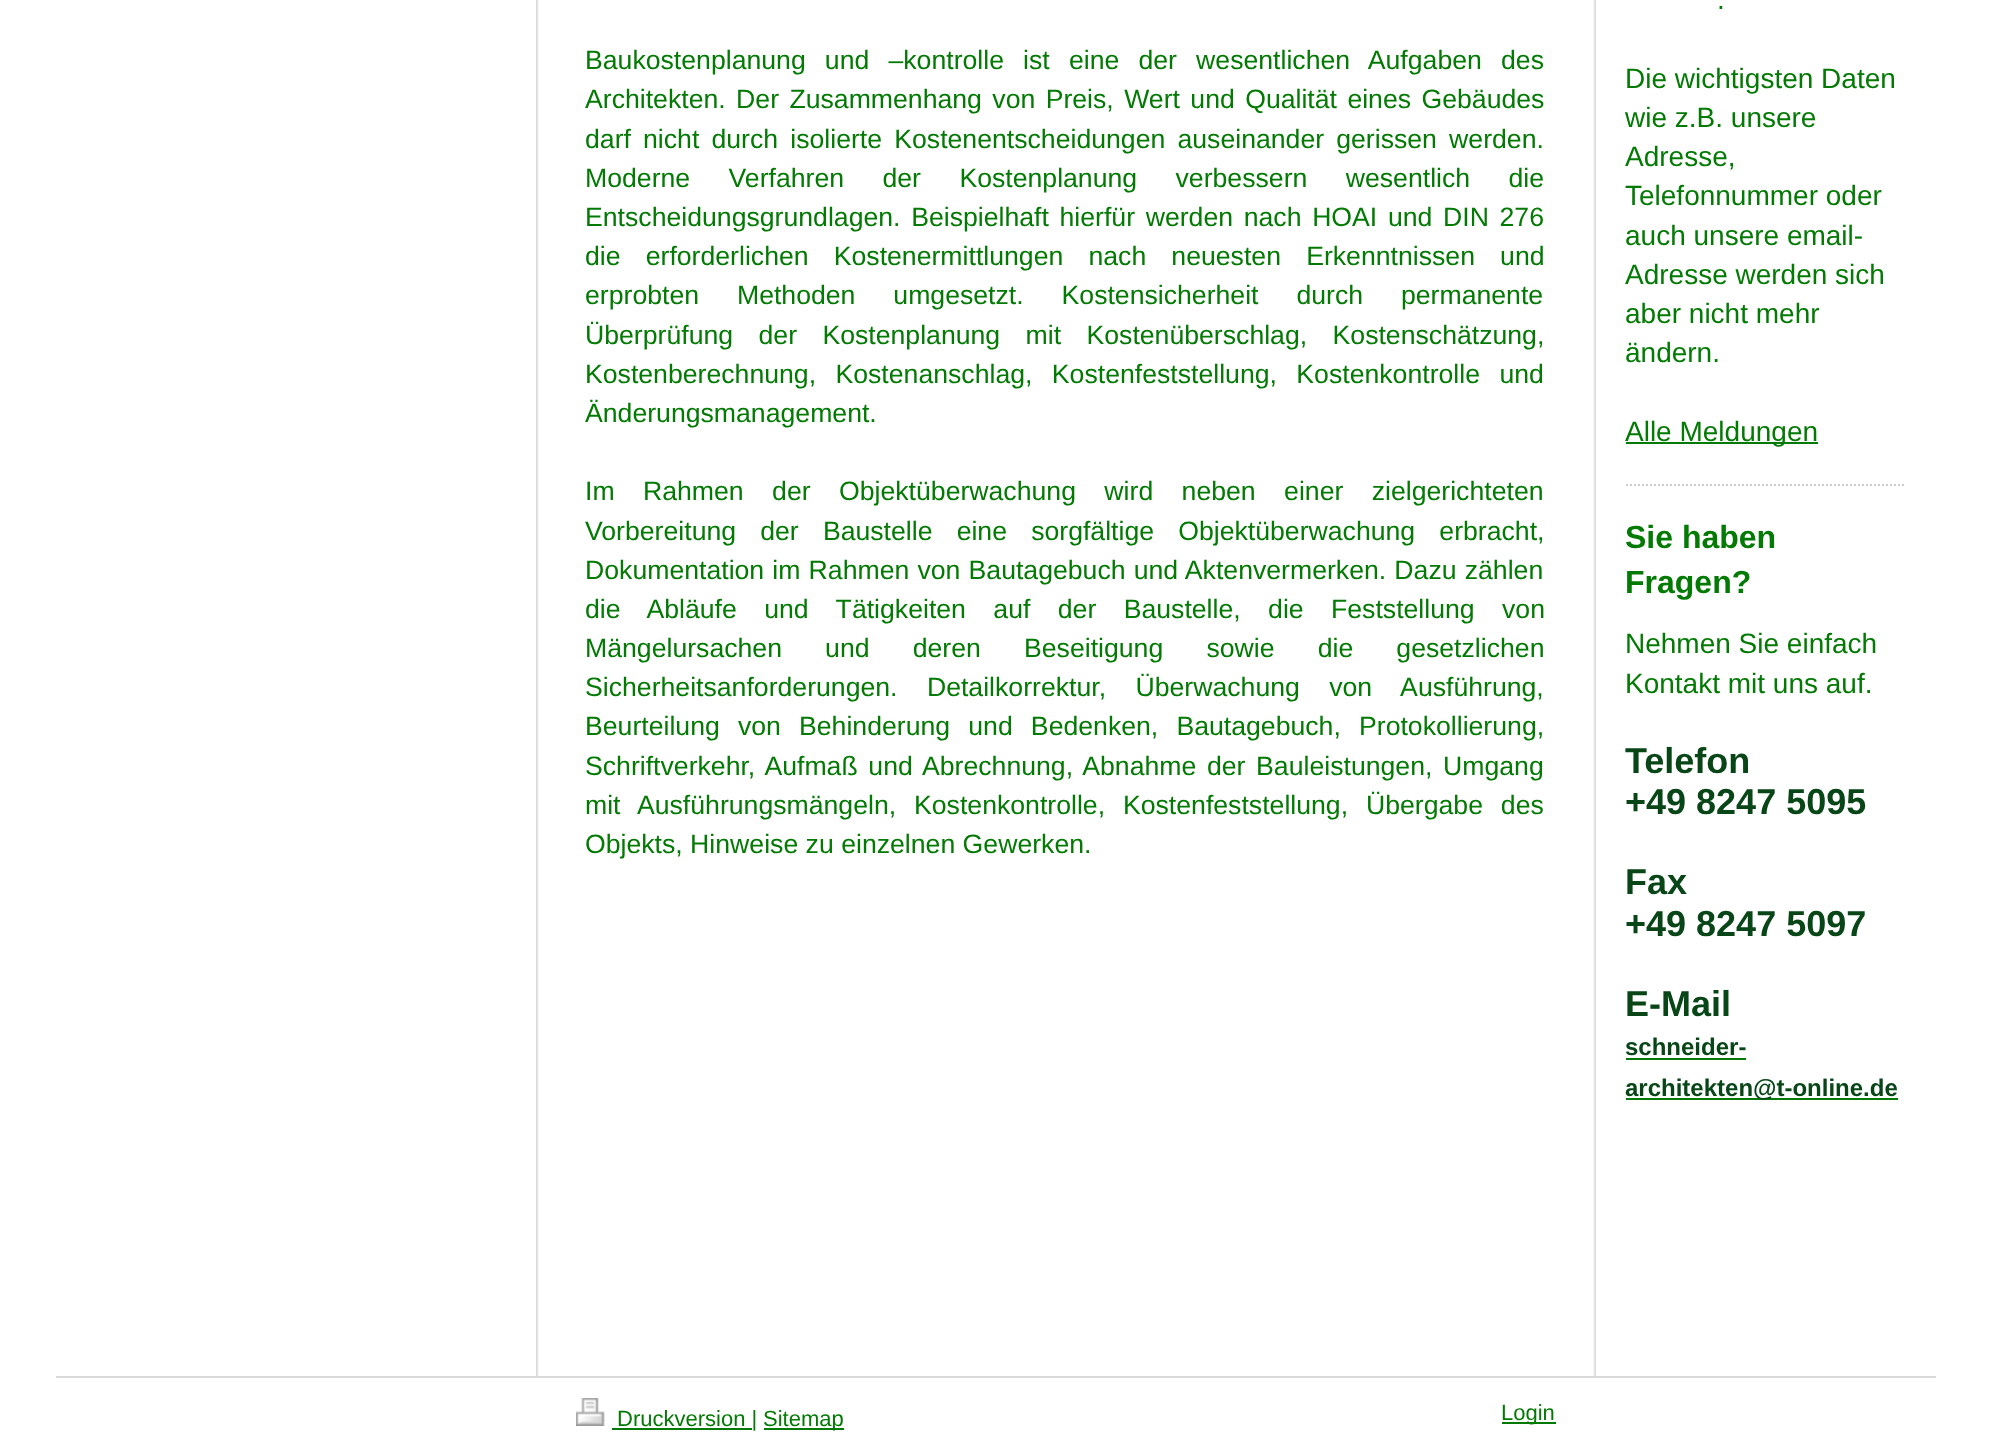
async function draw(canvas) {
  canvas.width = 1990;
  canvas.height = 1436;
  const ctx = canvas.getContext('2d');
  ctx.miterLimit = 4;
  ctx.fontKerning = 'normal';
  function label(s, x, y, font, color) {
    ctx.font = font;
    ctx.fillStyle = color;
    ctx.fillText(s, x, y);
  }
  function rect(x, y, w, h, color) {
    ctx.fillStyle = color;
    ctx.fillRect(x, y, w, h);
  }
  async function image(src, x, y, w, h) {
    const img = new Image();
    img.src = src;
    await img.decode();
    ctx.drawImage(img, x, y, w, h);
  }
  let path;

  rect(0, 0, 1990, 1436, '#fff');
  await image('assets/img1.png', 536, 0, 1060, 1376);
  ctx.wordSpacing = '11.75px';
  label('Baukostenplanung und –kontrolle ist eine der wesentlichen Aufgaben des', 585, 69, '26.65px Liberation Sans', '#037a04');
  ctx.wordSpacing = '3px';
  label('Architekten. Der Zusammenhang von Preis, Wert und Qualität eines Gebäudes', 585, 108, '26.65px Liberation Sans', '#037a04');
  ctx.wordSpacing = '4.75px';
  label('darf nicht durch isolierte Kostenentscheidungen auseinander gerissen werden.', 585, 148, '26.65px Liberation Sans', '#037a04');
  ctx.wordSpacing = '31px';
  label('Moderne Verfahren der Kostenplanung verbessern wesentlich die', 585, 187, '26.65px Liberation Sans', '#037a04');
  ctx.wordSpacing = '3.25px';
  label('Entscheidungsgrundlagen. Beispielhaft hierfür werden nach HOAI und DIN 276', 585, 226, '26.65px Liberation Sans', '#037a04');
  ctx.wordSpacing = '17.75px';
  label('die erforderlichen Kostenermittlungen nach neuesten Erkenntnissen und', 585, 265, '26.65px Liberation Sans', '#037a04');
  ctx.wordSpacing = '30.5px';
  label('erprobten Methoden umgesetzt. Kostensicherheit durch permanente', 585, 304, '26.65px Liberation Sans', '#037a04');
  ctx.wordSpacing = '18px';
  label('Überprüfung der Kostenplanung mit Kostenüberschlag, Kostenschätzung,', 585, 344, '26.65px Liberation Sans', '#037a04');
  ctx.wordSpacing = '12px';
  label('Kostenberechnung, Kostenanschlag, Kostenfeststellung, Kostenkontrolle und', 585, 383, '26.65px Liberation Sans', '#037a04');
  ctx.wordSpacing = '0px';
  label('Änderungsmanagement.', 585, 422, '26.65px Liberation Sans', '#037a04');
  ctx.wordSpacing = '21px';
  label('Im Rahmen der Objektüberwachung wird neben einer zielgerichteten', 585, 500, '26.65px Liberation Sans', '#037a04');
  ctx.wordSpacing = '16.75px';
  label('Vorbereitung der Baustelle eine sorgfältige Objektüberwachung erbracht,', 585, 540, '26.65px Liberation Sans', '#037a04');
  ctx.wordSpacing = '0.75px';
  label('Dokumentation im Rahmen von Bautagebuch und Aktenvermerken. Dazu zählen', 585, 579, '26.65px Liberation Sans', '#037a04');
  ctx.wordSpacing = '20px';
  label('die Abläufe und Tätigkeiten auf der Baustelle, die Feststellung von', 585, 618, '26.65px Liberation Sans', '#037a04');
  ctx.wordSpacing = '35.75px';
  label('Mängelursachen und deren Beseitigung sowie die gesetzlichen', 585, 657, '26.65px Liberation Sans', '#037a04');
  ctx.wordSpacing = '22px';
  label('Sicherheitsanforderungen. Detailkorrektur, Überwachung von Ausführung,', 585, 696, '26.65px Liberation Sans', '#037a04');
  ctx.wordSpacing = '10.75px';
  label('Beurteilung von Behinderung und Bedenken, Bautagebuch, Protokollierung,', 585, 735, '26.65px Liberation Sans', '#037a04');
  ctx.wordSpacing = '3.25px';
  label('Schriftverkehr, Aufmaß und Abrechnung, Abnahme der Bauleistungen, Umgang', 585, 775, '26.65px Liberation Sans', '#037a04');
  ctx.wordSpacing = '10.5px';
  label('mit Ausführungsmängeln, Kostenkontrolle, Kostenfeststellung, Übergabe des', 585, 814, '26.65px Liberation Sans', '#037a04');
  ctx.wordSpacing = '0px';
  label('Objekts, Hinweise zu einzelnen Gewerken.', 585, 853, '26.65px Liberation Sans', '#037a04');
  label('.', 1717, 9, '28px Liberation Sans', '#037a04');
  label('Die wichtigsten Daten', 1625, 88, '28px Liberation Sans', '#037a04');
  label('wie z.B. unsere', 1625, 127, '28px Liberation Sans', '#037a04');
  label('Adresse,', 1625, 166, '28px Liberation Sans', '#037a04');
  label('Telefonnummer oder', 1625, 205, '28px Liberation Sans', '#037a04');
  label('auch unsere email-', 1625, 245, '28px Liberation Sans', '#037a04');
  label('Adresse werden sich', 1625, 284, '28px Liberation Sans', '#037a04');
  label('aber nicht mehr', 1625, 323, '28px Liberation Sans', '#037a04');
  label('ändern.', 1625, 362, '28px Liberation Sans', '#037a04');
  rect(1626, 442, 192, 2, '#037a04');
  label('Alle Meldungen', 1625, 441, '28px Liberation Sans', '#037a04');
  path = new Path2D('M1626 485H1906');
  ctx.strokeStyle = '#ccc';
  ctx.lineWidth = 2;
  ctx.setLineDash([2, 2]);
  ctx.stroke(path);
  label('Sie haben', 1625, 548, 'bold 32px Liberation Sans', '#037a04');
  label('Fragen?', 1625, 593, 'bold 32px Liberation Sans', '#037a04');
  label('Nehmen Sie einfach', 1625, 653, '28px Liberation Sans', '#037a04');
  label('Kontakt mit uns auf.', 1625, 693, '28px Liberation Sans', '#037a04');
  label('Telefon', 1625, 773, 'bold 36px Liberation Sans', '#084617');
  label('+49 8247 5095', 1625, 814, 'bold 36px Liberation Sans', '#084617');
  label('Fax', 1625, 894, 'bold 36px Liberation Sans', '#084617');
  label('+49 8247 5097', 1625, 936, 'bold 36px Liberation Sans', '#084617');
  label('E-Mail', 1625, 1016, 'bold 36px Liberation Sans', '#084617');
  label('schneider-', 1625, 1055, 'bold 24px Liberation Sans', '#084617');
  rect(1626, 1058, 120, 2, '#037a04');
  rect(1626, 1098, 272, 2, '#037a04');
  label('architekten@t-online.de', 1625, 1096, 'bold 24px Liberation Sans', '#084617');
  rect(56, 1376, 1880, 2, '#dadada');
  await image('assets/img2.png', 576, 1398, 29, 28);
  rect(612, 1428, 140, 2, '#037a04');
  label('Druckversion |', 617, 1426, '22px Liberation Sans', '#037a04');
  rect(764, 1428, 80, 2, '#037a04');
  label('Sitemap', 763, 1426, '22px Liberation Sans', '#037a04');
  rect(1502, 1422, 54, 2, '#037a04');
  label('Login', 1501, 1420, '22px Liberation Sans', '#037a04');
}

draw(document.querySelector('canvas'));
